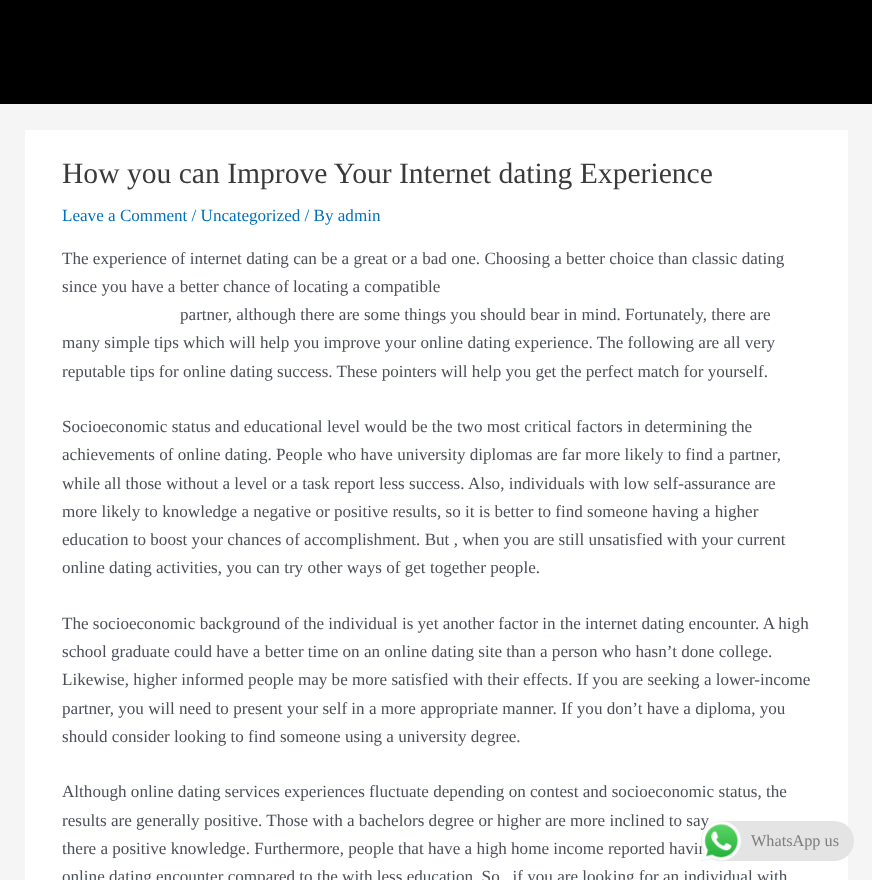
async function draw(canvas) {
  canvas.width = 872;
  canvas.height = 880;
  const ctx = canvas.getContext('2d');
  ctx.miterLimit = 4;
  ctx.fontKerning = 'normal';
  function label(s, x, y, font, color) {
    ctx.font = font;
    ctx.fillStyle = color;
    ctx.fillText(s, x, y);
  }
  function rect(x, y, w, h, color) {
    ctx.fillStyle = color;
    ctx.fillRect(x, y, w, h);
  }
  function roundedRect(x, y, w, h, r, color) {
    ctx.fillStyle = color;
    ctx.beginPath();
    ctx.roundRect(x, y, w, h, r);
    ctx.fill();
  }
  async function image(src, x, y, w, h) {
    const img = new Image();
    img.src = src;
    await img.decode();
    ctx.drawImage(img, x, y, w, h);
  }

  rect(0, 0, 872, 880, '#f5f5f5');
  rect(0, 0, 872, 104, '#000');
  rect(25, 130, 823, 750, '#fff');
  label('How you can Improve Your Internet dating Experience', 62, 183, '29.6px Liberation Serif', '#3a3a3a');
  label('Leave a Comment / Uncategorized / By admin', 62, 221, '17.1px Liberation Serif', '#0170b9');
  label('The experience of internet dating can be a great or a bad one. Choosing a better choice than classic dating', 62, 264, '17.1px Liberation Serif', '#4b4f58');
  label('since you have a better chance of locating a compatible', 62, 292, '17.1px Liberation Serif', '#4b4f58');
  label('partner, although there are some things you should bear in mind. Fortunately, there are', 180, 320, '17.1px Liberation Serif', '#4b4f58');
  label('many simple tips which will help you improve your online dating experience. The following are all very', 62, 348, '17.1px Liberation Serif', '#4b4f58');
  label('reputable tips for online dating success. These pointers will help you get the perfect match for yourself.', 62, 377, '17.1px Liberation Serif', '#4b4f58');
  label('Socioeconomic status and educational level would be the two most critical factors in determining the', 62, 432, '17.1px Liberation Serif', '#4b4f58');
  label('achievements of online dating. People who have university diplomas are far more likely to find a partner,', 62, 460, '17.1px Liberation Serif', '#4b4f58');
  label('while all those without a level or a task report less success. Also, individuals with low self-assurance are', 62, 489, '17.1px Liberation Serif', '#4b4f58');
  label('more likely to knowledge a negative or positive results, so it is better to find', 62, 517, '17.1px Liberation Serif', '#4b4f58');
  label('someone having a higher', 587, 517, '17.1px Liberation Serif', '#4b4f58');
  label('education to boost your chances of accomplishment. But , when you are still unsatisfied with your current', 62, 545, '17.1px Liberation Serif', '#4b4f58');
  label('online dating activities, you can try other ways of get together people.', 62, 573, '17.1px Liberation Serif', '#4b4f58');
  label('The socioeconomic background of the individual is yet another factor in the internet dating encounter. A high', 62, 629, '17.1px Liberation Serif', '#4b4f58');
  label('school graduate could have a better time on an online dating site than a person who hasn’t done college.', 62, 657, '17.1px Liberation Serif', '#4b4f58');
  label('Likewise, higher informed people may be more satisfied with their effects. If you are seeking a lower-income', 62, 685, '17.1px Liberation Serif', '#4b4f58');
  label('partner, you will need to present your self in a more appropriate manner. If you don’t have a diploma, you', 62, 714, '17.1px Liberation Serif', '#4b4f58');
  label('should consider looking to find someone using a university degree.', 62, 742, '17.1px Liberation Serif', '#4b4f58');
  label('Although online dating services experiences fluctuate depending on contest and socioeconomic status, the', 62, 797, '17.1px Liberation Serif', '#4b4f58');
  label('results are generally positive. Those with a bachelors degree or higher are more inclined to say', 62, 826, '17.1px Liberation Serif', '#4b4f58');
  label('there a positive knowledge. Furthermore, people that have a high home income reported havin', 62, 854, '17.1px Liberation Serif', '#4b4f58');
  label('online dating encounter compared to the with less education. So , if you are looking for an individual with', 62, 882, '17.1px Liberation Serif', '#4b4f58');
  roundedRect(701, 821, 153, 40, 20, '#e4e4e4');
  await image('assets/img1.png', 701, 821, 41, 41);
  label('WhatsApp us', 751, 846, '16.25px Liberation Serif', '#7f7d7d');
}

draw(document.querySelector('canvas'));
